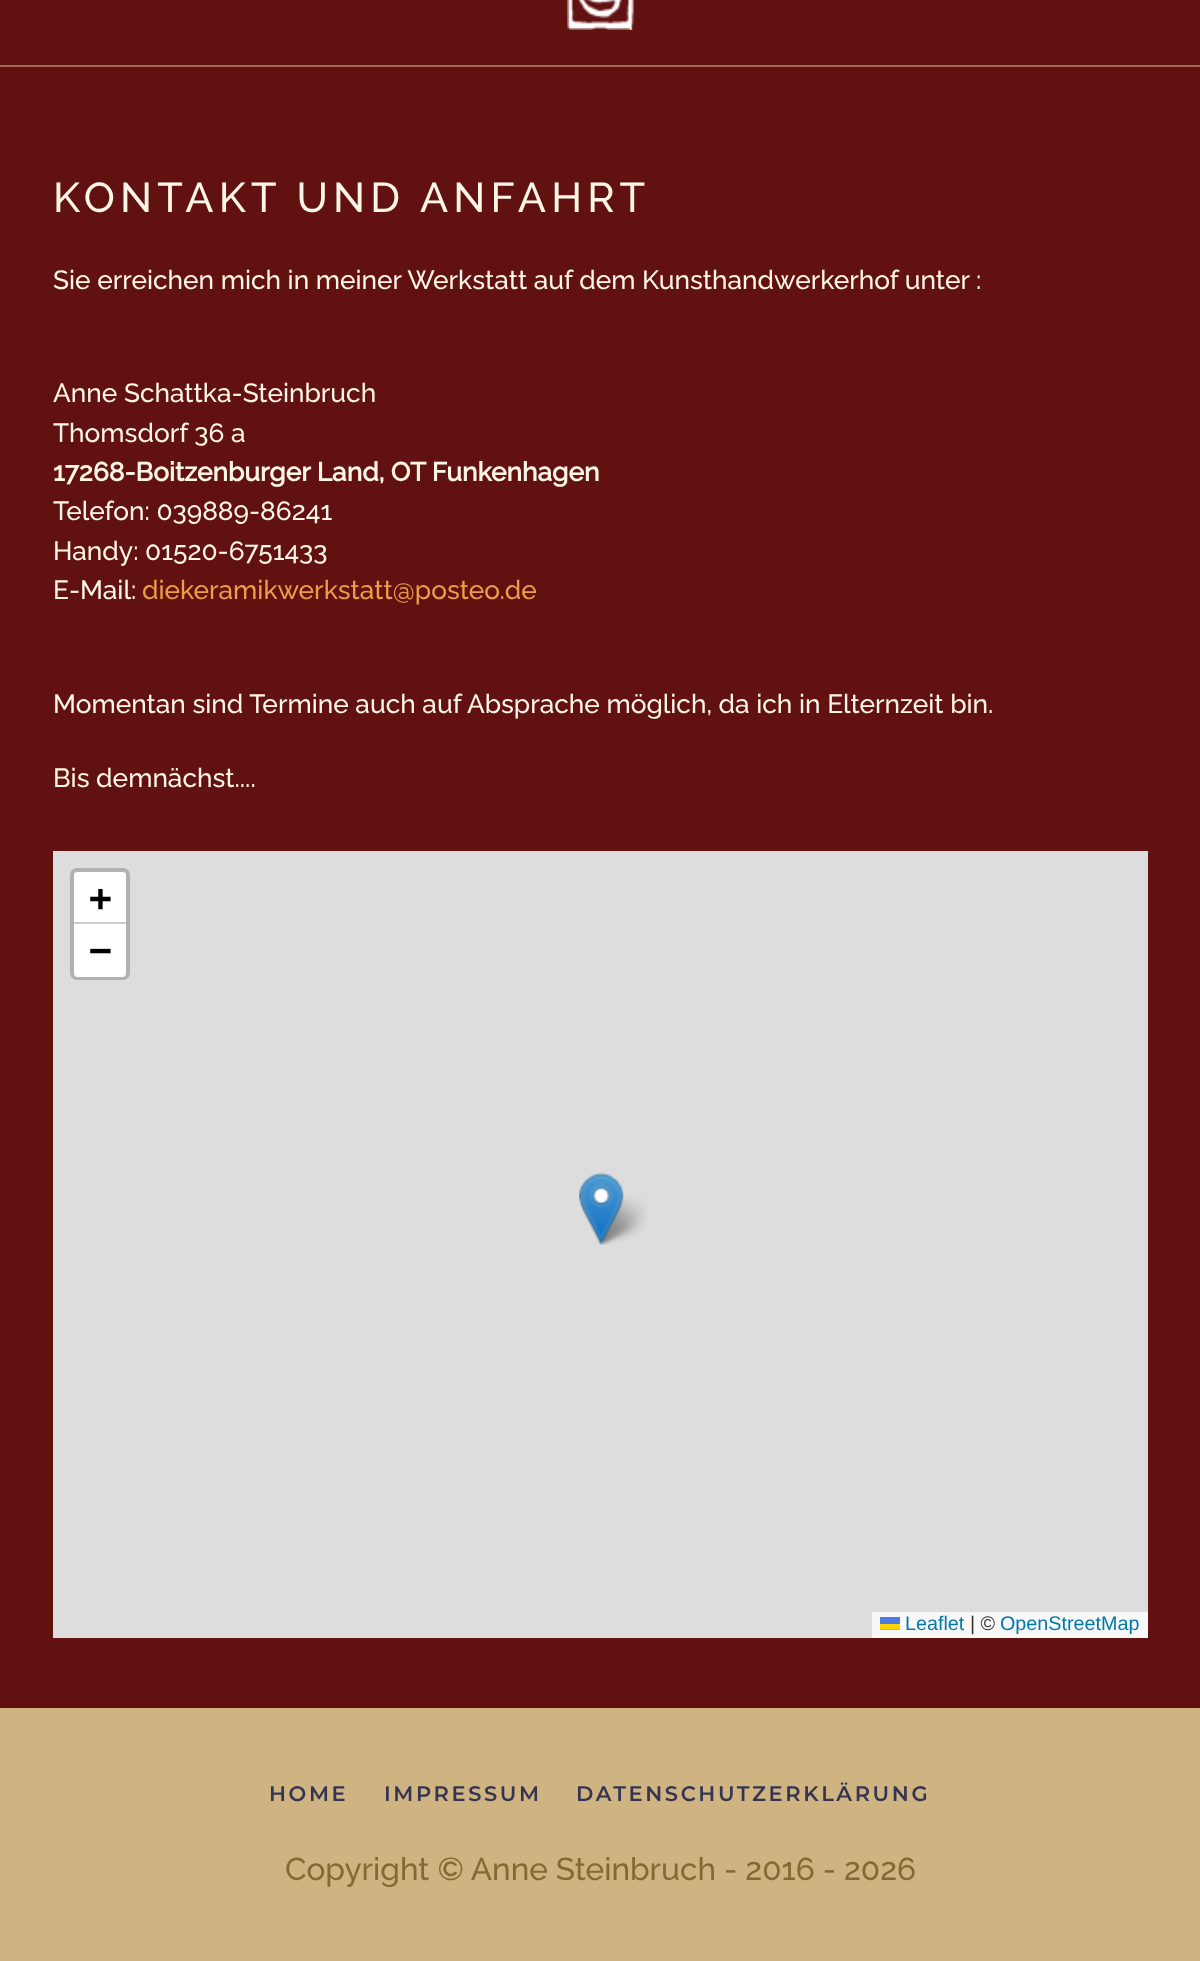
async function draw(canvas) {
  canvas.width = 1200;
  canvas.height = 1961;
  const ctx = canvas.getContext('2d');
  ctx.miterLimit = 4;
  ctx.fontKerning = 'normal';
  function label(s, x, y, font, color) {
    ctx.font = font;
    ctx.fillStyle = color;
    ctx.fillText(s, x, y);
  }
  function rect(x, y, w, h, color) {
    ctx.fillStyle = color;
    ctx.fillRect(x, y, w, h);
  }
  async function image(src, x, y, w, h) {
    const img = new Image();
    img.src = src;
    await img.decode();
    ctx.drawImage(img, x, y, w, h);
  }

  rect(0, 0, 1200, 1961, '#621111');
  await image('assets/img1.png', 567, 0, 67, 30);
  rect(0, 65, 1200, 2, '#a16757');
  ctx.letterSpacing = '5.25px';
  label('KONTAKT UND ANFAHRT', 53, 212, '100 41.6px Raleway', '#fff6e6');
  ctx.letterSpacing = '0px';
  label('Sie erreichen mich in meiner Werkstatt auf dem Kunsthandwerkerhof unter :', 53, 289, '100 26.25px Raleway', '#fff6e6');
  label('Anne Schattka-Steinbruch', 53, 402, '100 26.25px Raleway', '#fff6e6');
  label('Thomsdorf 36 a', 53, 442, '100 26.25px Raleway', '#fff6e6');
  label('17268-Boitzenburger Land, OT Funkenhagen', 53, 481, 'bold 26.25px Raleway', '#fff6e6');
  label('Telefon: 039889-86241', 53, 520, '100 26.25px Raleway', '#fff6e6');
  label('Handy: 01520-6751433', 53, 560, '100 26.25px Raleway', '#fff6e6');
  label('E-Mail:', 53, 599, '100 26.25px Raleway', '#fff6e6');
  label('diekeramikwerkstatt@posteo.de', 142, 599, '100 26.25px Raleway', '#eb9d48');
  label('Momentan sind Termine auch auf Absprache möglich, da ich in Elternzeit bin.', 53, 713, '100 26.25px Raleway', '#fff6e6');
  label('Bis demnächst....', 53, 787, '100 26.25px Raleway', '#fff6e6');
  rect(53, 851, 1095, 787, '#ddd');
  ctx.beginPath();
  ctx.roundRect(72, 870, 56, 108, 5);
  ctx.strokeStyle = '#b1b1b1';
  ctx.lineWidth = 4;
  ctx.stroke();
  ctx.fillStyle = '#fff';
  ctx.beginPath();
  ctx.roundRect(74, 872, 52, 52, [4, 4, 0, 0]);
  ctx.fill();
  rect(74, 922, 52, 2, '#ccc');
  label('+', 89, 911, 'bold 38px DejaVu Sans Mono', '#000');
  ctx.fillStyle = '#fff';
  ctx.beginPath();
  ctx.roundRect(74, 924, 52, 53, [0, 0, 4, 4]);
  ctx.fill();
  label('−', 89, 963, 'bold 38px DejaVu Sans Mono', '#000');
  rect(872, 1612, 276, 26, '#f8f8f8');
  label('Leaflet', 905, 1630, '19.75px Liberation Sans', '#0078a8');
  rect(880, 1617, 20, 7, '#4c7be1');
  rect(880, 1624, 20, 5, '#ffd500');
  rect(880, 1629, 20, 1, '#e0bc00');
  label('| ©', 970, 1630, '19.75px Liberation Sans', '#333');
  label('OpenStreetMap', 1000, 1630, '19.75px Liberation Sans', '#0078a8');
  await image('assets/img3.png', 595, 1195, 52, 50);
  await image('assets/img2.png', 579, 1172, 45, 73);
  rect(0, 1708, 1200, 253, '#cfb481');
  ctx.letterSpacing = '2.6px';
  label('HOME', 269, 1801, '100 21px Montserrat', '#353551');
  label('IMPRESSUM', 384, 1801, '100 21px Montserrat', '#353551');
  label('DATENSCHUTZERKLÄRUNG', 576, 1801, '100 21px Montserrat', '#353551');
  ctx.letterSpacing = '0px';
  label('Copyright © Anne Steinbruch - 2016 - 2026', 285, 1880, '100 31.5px Raleway', '#856832');
}

draw(document.querySelector('canvas'));
